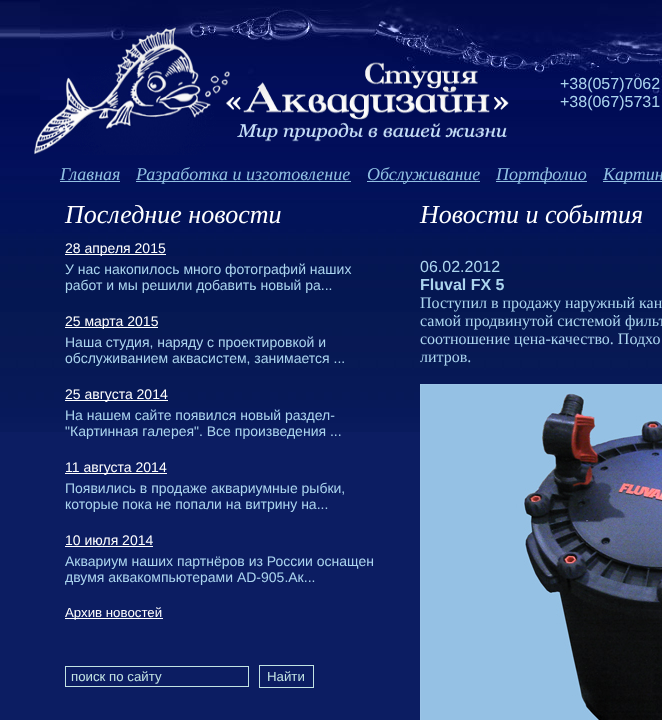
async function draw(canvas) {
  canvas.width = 662;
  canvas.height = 720;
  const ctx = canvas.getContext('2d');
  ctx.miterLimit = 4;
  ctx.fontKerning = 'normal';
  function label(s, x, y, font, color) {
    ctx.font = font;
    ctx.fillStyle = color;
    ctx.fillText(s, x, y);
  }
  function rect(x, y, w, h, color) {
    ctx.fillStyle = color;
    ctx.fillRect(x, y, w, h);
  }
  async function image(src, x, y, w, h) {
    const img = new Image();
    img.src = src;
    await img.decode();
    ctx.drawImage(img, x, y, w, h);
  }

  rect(0, 0, 662, 720, '#0c1d62');
  await image('assets/img1.png', 0, 0, 662, 432);
  await image('assets/img2.png', 40, 0, 622, 100);
  await image('assets/img3.png', 34, 27, 475, 128);
  label('+38(057)7062', 560, 89, '16px Liberation Sans', '#acd5ef');
  label('+38(067)5731', 560, 107, '16px Liberation Sans', '#acd5ef');
  label('Главная', 60, 180, 'italic 18px Liberation Serif', '#92c1e3');
  rect(60, 181, 60, 1, '#92c1e3');
  rect(136, 181, 215, 1, '#92c1e3');
  label('Разработка и изготовление', 136, 180, 'italic 18px Liberation Serif', '#92c1e3');
  rect(367, 181, 113, 1, '#92c1e3');
  label('Обслуживание', 367, 180, 'italic 18px Liberation Serif', '#92c1e3');
  rect(496, 181, 91, 1, '#92c1e3');
  label('Портфолио', 496, 180, 'italic 18px Liberation Serif', '#92c1e3');
  rect(603, 181, 59, 1, '#92c1e3');
  label('Картин', 603, 180, 'italic 18px Liberation Serif', '#92c1e3');
  label('Последние новости', 65, 223, 'italic 26px Liberation Serif', '#fff');
  rect(65, 254, 101, 1, '#fff');
  label('28 апреля 2015', 65, 253, '14px Liberation Sans', '#fff');
  label('У нас накопилось много фотографий наших', 65, 274, '14px Liberation Sans', '#acd5ef');
  label('работ и мы решили добавить новый ра...', 65, 290, '14px Liberation Sans', '#acd5ef');
  rect(65, 327, 93, 1, '#fff');
  label('25 марта 2015', 65, 326, '14px Liberation Sans', '#fff');
  label('Наша студия, наряду с проектировкой и', 65, 347, '14px Liberation Sans', '#acd5ef');
  label('обслуживанием аквасистем, занимается ...', 65, 363, '14px Liberation Sans', '#acd5ef');
  rect(65, 400, 103, 1, '#fff');
  label('25 августа 2014', 65, 399, '14px Liberation Sans', '#fff');
  label('На нашем сайте появился новый раздел-', 65, 420, '14px Liberation Sans', '#acd5ef');
  label('"Картинная галерея". Все произведения ...', 65, 436, '14px Liberation Sans', '#acd5ef');
  rect(65, 473, 102, 1, '#fff');
  label('11 августа 2014', 65, 472, '14px Liberation Sans', '#fff');
  label('Появились в продаже аквариумные рыбки,', 65, 493, '14px Liberation Sans', '#acd5ef');
  label('которые пока не попали на витрину на...', 65, 509, '14px Liberation Sans', '#acd5ef');
  label('10 июля 2014', 65, 545, '14px Liberation Sans', '#fff');
  rect(65, 546, 88, 1, '#fff');
  label('Аквариум наших партнёров из России оснащен', 65, 566, '14px Liberation Sans', '#acd5ef');
  label('двумя аквакомпьютерами AD-905.Ак...', 65, 582, '14px Liberation Sans', '#acd5ef');
  rect(65, 618, 98, 1, '#fff');
  label('Архив новостей', 65, 617, '13.25px Liberation Sans', '#fff');
  ctx.strokeStyle = '#c2e3e2';
  ctx.strokeRect(65.5, 666.5, 183, 20);
  label('поиск по сайту', 71, 681, '13.25px Liberation Sans', '#c2e3e2');
  ctx.strokeRect(259.5, 665.5, 54, 22);
  label('Найти', 267, 681, '13.25px Liberation Sans', '#c2e3e2');
  label('Новости и события', 420, 223, 'italic 26px Liberation Serif', '#fff');
  label('06.02.2012', 420, 272, '16px Liberation Sans', '#acd5ef');
  label('Fluval FX 5', 420, 290, 'bold 16px Liberation Sans', '#acd5ef');
  label('Поступил в продажу наружный кан', 420, 308, '16px Liberation Serif', '#acd5ef');
  label('самой продвинутой системой фильт', 420, 326, '16px Liberation Serif', '#acd5ef');
  label('соотношение цена-качество. Подхо', 420, 344, '16px Liberation Serif', '#acd5ef');
  label('литров.', 420, 362, '16px Liberation Serif', '#acd5ef');
  await image('assets/img4.png', 420, 384, 242, 336);
}

draw(document.querySelector('canvas'));
